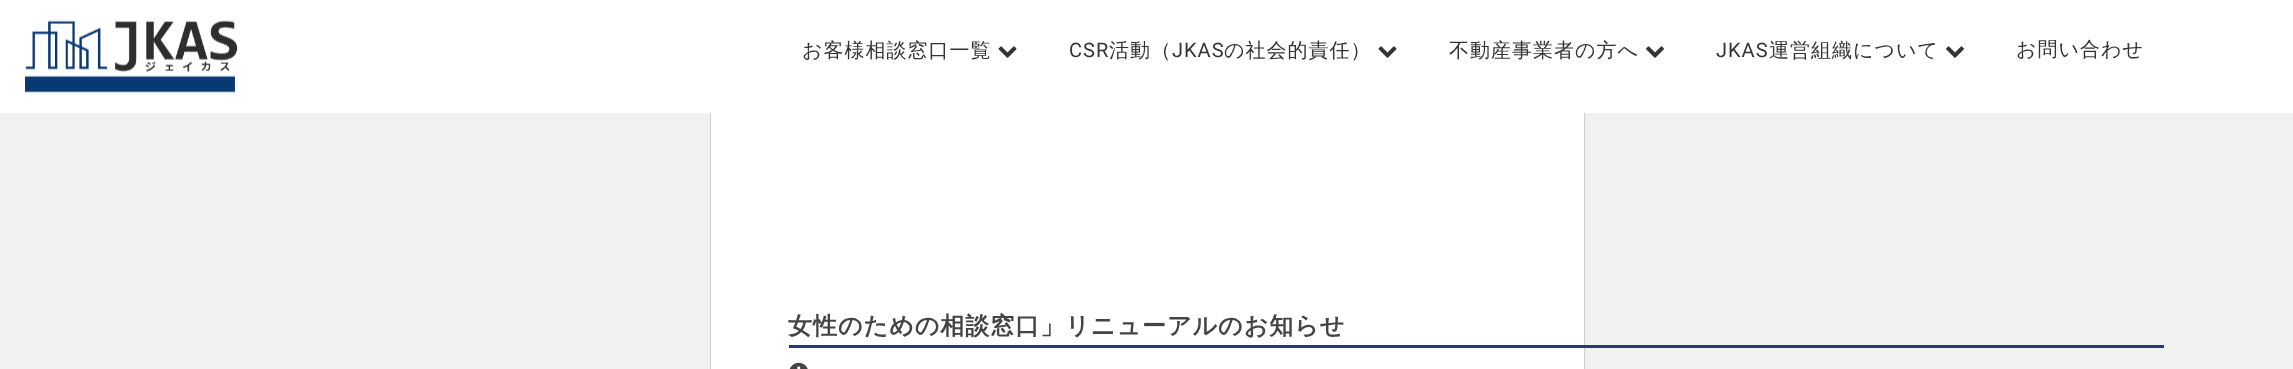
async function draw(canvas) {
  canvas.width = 2293;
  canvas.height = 369;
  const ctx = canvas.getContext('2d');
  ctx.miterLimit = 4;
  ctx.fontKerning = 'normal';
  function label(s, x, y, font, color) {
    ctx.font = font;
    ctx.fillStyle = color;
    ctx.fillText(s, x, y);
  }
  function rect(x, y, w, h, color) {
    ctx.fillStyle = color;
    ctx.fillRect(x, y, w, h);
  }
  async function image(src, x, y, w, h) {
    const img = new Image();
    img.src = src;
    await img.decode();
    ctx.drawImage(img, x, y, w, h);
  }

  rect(0, 0, 2293, 369, '#f1f1f1');
  rect(711, 113, 873, 256, '#fff');
  ctx.strokeStyle = '#ccd0d4';
  ctx.strokeRect(710.5, 63.5, 874, 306);
  rect(0, 0, 2293, 113, '#fff');
  await image('assets/img1.png', 25, 20, 213, 73);
  ctx.letterSpacing = '1px';
  label('お客様相談窓口一覧', 802, 57, '500 20px WenQuanYi Zen Hei', '#333');
  await image('assets/img2.png', 998, 46, 19, 12);
  label('CSR', 1069, 57, '20px Roboto', '#333');
  label('活動（', 1109, 57, '500 20px WenQuanYi Zen Hei', '#333');
  label('JKAS', 1172, 57, '20px Roboto', '#333');
  label('の社会的責任）', 1224, 57, '500 20px WenQuanYi Zen Hei', '#333');
  await image('assets/img2.png', 1378, 46, 19, 12);
  label('不動産事業者の方へ', 1449, 57, '500 20px WenQuanYi Zen Hei', '#333');
  await image('assets/img3.png', 1646, 46, 18, 12);
  label('JKAS', 1716, 57, '20px Roboto', '#333');
  label('運営組織について', 1769, 57, '500 20px WenQuanYi Zen Hei', '#333');
  await image('assets/img3.png', 1946, 46, 18, 12);
  label('お問い合わせ', 2016, 56, '500 20px WenQuanYi Zen Hei', '#333');
  rect(789, 345, 1375, 3, '#243c73');
  label('女性のための相談窓口」リニューアルのお知らせ', 788, 334, 'bold 24px WenQuanYi Zen Hei', '#444');
  await image('assets/img4.png', 789, 362, 19, 7);
}

draw(document.querySelector('canvas'));
